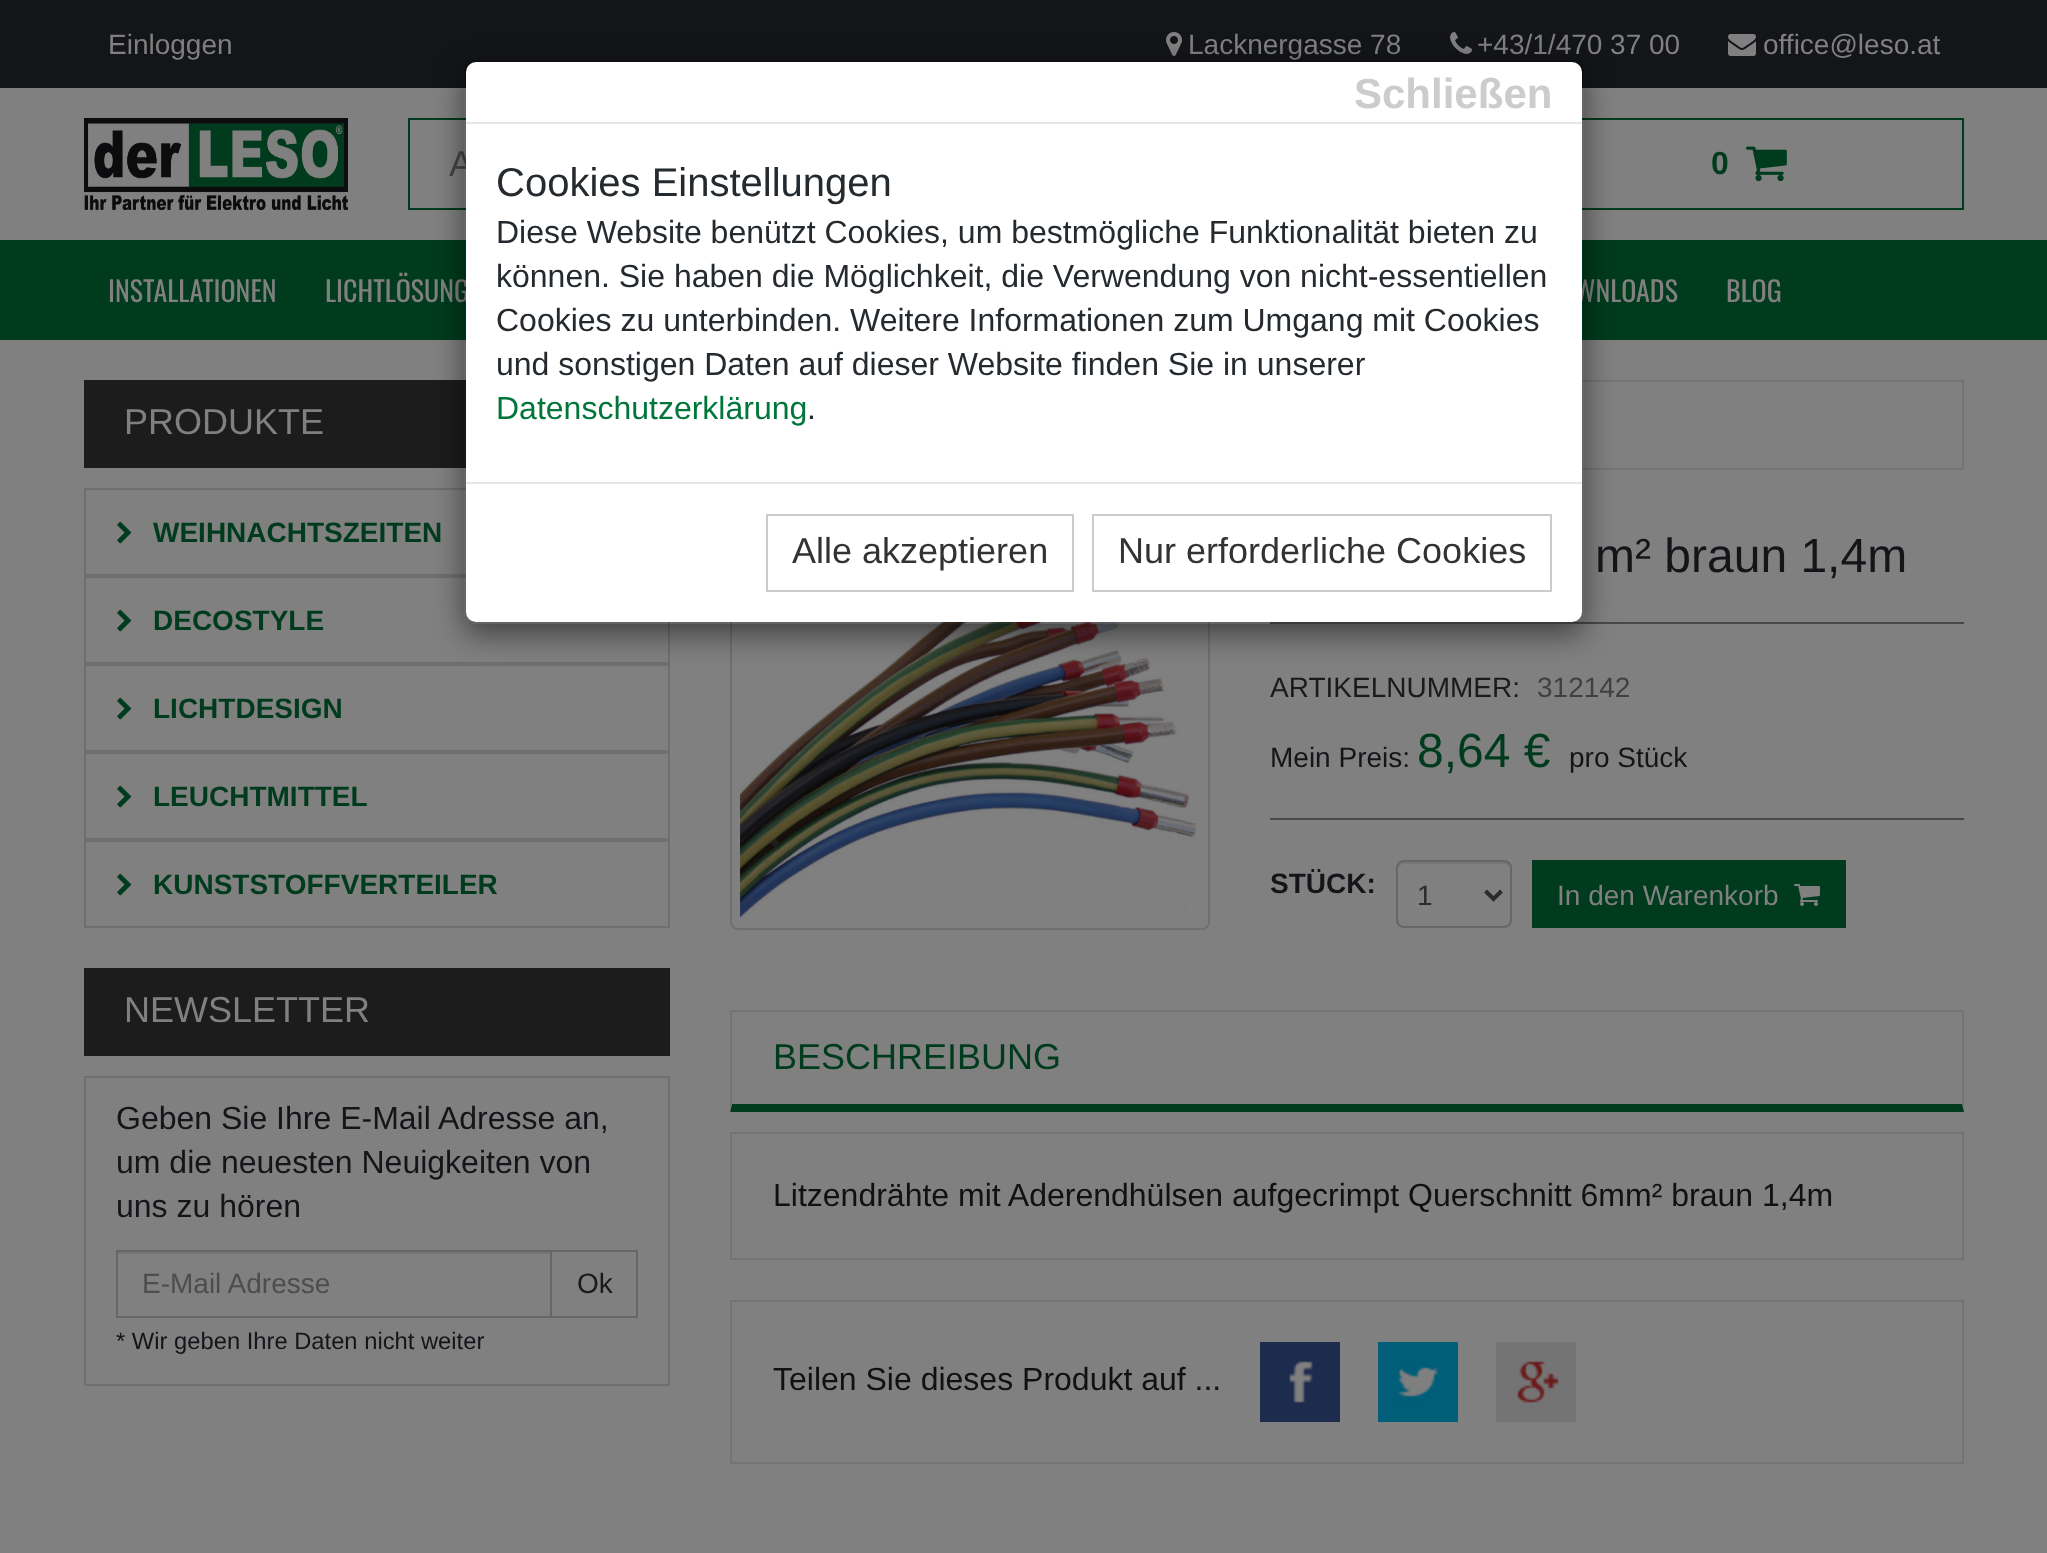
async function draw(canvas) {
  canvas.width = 2047;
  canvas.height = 1553;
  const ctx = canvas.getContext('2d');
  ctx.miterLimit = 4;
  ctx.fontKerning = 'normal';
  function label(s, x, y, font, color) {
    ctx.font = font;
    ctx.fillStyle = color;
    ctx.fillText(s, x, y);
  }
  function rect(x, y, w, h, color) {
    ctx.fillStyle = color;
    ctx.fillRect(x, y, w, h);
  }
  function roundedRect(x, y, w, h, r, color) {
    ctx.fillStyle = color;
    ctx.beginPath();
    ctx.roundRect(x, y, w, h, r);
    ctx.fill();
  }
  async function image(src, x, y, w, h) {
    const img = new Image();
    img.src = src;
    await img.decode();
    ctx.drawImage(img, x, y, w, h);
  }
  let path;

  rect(0, 0, 2047, 1553, '#808080');
  rect(0, 0, 2047, 88, '#131518');
  label('Einloggen', 108, 54, '28px Liberation Sans', '#808080');
  await image('assets/img1.png', 1166, 32, 16, 24);
  label('Lacknergasse 78', 1188, 54, '28px Liberation Sans', '#808080');
  await image('assets/img2.png', 1450, 32, 22, 22);
  label('+43/1/470 37 00', 1477, 54, '28px Liberation Sans', '#808080');
  await image('assets/img3.png', 1728, 34, 28, 22);
  label('office@leso.at', 1763, 54, '28px Liberation Sans', '#808080');
  await image('assets/img4.png', 84, 118, 264, 92);
  rect(408, 118, 58, 2, '#003b1d');
  rect(408, 208, 58, 2, '#003b1d');
  rect(408, 118, 2, 92, '#003b1d');
  label('A', 449, 176, '36px Liberation Sans', '#444546');
  ctx.strokeStyle = '#003b1d';
  ctx.lineWidth = 2;
  ctx.strokeRect(1539, 119, 424, 90);
  label('0', 1711, 174, 'bold 32px Liberation Sans', '#003b1d');
  await image('assets/img5.png', 1746, 146, 41, 36);
  rect(0, 240, 2047, 100, '#003b1d');
  label('INSTALLATIONEN', 108, 302, '28px Oswald', '#808080');
  label('LICHTLÖSUNG', 325, 302, '28px Oswald', '#808080');
  label('WNLOADS', 1575, 302, '28px Oswald', '#808080');
  label('BLOG', 1726, 302, '28px Oswald', '#808080');
  rect(84, 380, 382, 88, '#1c1c1c');
  ctx.strokeStyle = '#6f6f6f';
  ctx.strokeRect(85, 489, 584, 86);
  ctx.strokeRect(85, 577, 584, 86);
  ctx.strokeRect(85, 665, 584, 86);
  ctx.strokeStyle = '#747474';
  ctx.strokeRect(731, 381, 1232, 88);
  ctx.beginPath();
  ctx.roundRect(731, 531, 478, 398, 7);
  ctx.strokeStyle = '#6f6f6f';
  ctx.stroke();
  await image('assets/img7.png', 740, 622, 457, 298);
  rect(1270, 622, 694, 2, '#464849');
  ctx.save();
  path = new Path2D('M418 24H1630V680H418ZM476 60H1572C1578.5 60 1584 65.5 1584 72V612C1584 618.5 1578.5 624 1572 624H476C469.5 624 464 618.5 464 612V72C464 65.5 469.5 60 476 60Z');
  ctx.clip(path, 'evenodd');
  ctx.fillStyle = '#00000080';
  ctx.filter = 'blur(15px)';
  ctx.beginPath();
  ctx.roundRect(464, 70, 1120, 564, 12);
  ctx.fill();
  ctx.filter = 'none';
  ctx.restore();
  roundedRect(466, 62, 1116, 560, 10, '#fff');
  ctx.beginPath();
  ctx.roundRect(465, 61, 1118, 562, 11);
  ctx.strokeStyle = '#00000033';
  ctx.stroke();
  rect(466, 122, 1116, 2, '#e5e5e5');
  label('Schließen', 1354, 108, 'bold 42px Liberation Sans', '#ccc');
  label('Cookies Einstellungen', 496, 196, '40px Liberation Sans', '#252a2f');
  label('Diese Website benützt Cookies, um bestmögliche Funktionalität bieten zu', 496, 243, '32px Liberation Sans', '#252a2f');
  label('können. Sie haben die Möglichkeit, die Verwendung von nicht-essentiellen', 496, 287, '32px Liberation Sans', '#252a2f');
  label('Cookies zu unterbinden. Weitere Informationen zum Umgang mit Cookies', 496, 331, '32px Liberation Sans', '#252a2f');
  label('und sonstigen Daten auf dieser Website finden Sie in unserer', 496, 375, '32px Liberation Sans', '#252a2f');
  label('Datenschutzerklärung', 496, 419, '32px Liberation Sans', '#00763a');
  label('.', 807, 419, '32px Liberation Sans', '#252a2f');
  rect(466, 482, 1116, 2, '#e5e5e5');
  ctx.strokeStyle = '#ccc';
  ctx.strokeRect(767, 515, 306, 76);
  label('Alle akzeptieren', 792, 563, '36px Liberation Sans', '#333');
  ctx.strokeRect(1093, 515, 458, 76);
  label('Nur erforderliche Cookies', 1118, 563, '36px Liberation Sans', '#333');
  label('PRODUKTE', 124, 434, '36px Liberation Sans', '#808080');
  await image('assets/img6.png', 117, 521, 14, 23);
  label('WEIHNACHTSZEITEN', 153, 542, 'bold 28px Liberation Sans', '#003b1d');
  await image('assets/img6.png', 117, 609, 14, 23);
  label('DECOSTYLE', 153, 630, 'bold 28px Liberation Sans', '#003b1d');
  await image('assets/img6.png', 117, 697, 14, 23);
  label('LICHTDESIGN', 153, 718, 'bold 28px Liberation Sans', '#003b1d');
  ctx.strokeStyle = '#6f6f6f';
  ctx.strokeRect(85, 753, 584, 86);
  await image('assets/img6.png', 117, 785, 14, 23);
  label('LEUCHTMITTEL', 153, 806, 'bold 28px Liberation Sans', '#003b1d');
  ctx.strokeRect(85, 841, 584, 86);
  await image('assets/img6.png', 117, 873, 14, 23);
  label('KUNSTSTOFFVERTEILER', 153, 894, 'bold 28px Liberation Sans', '#003b1d');
  rect(84, 968, 586, 88, '#1c1c1c');
  label('NEWSLETTER', 124, 1022, '36px Liberation Sans', '#808080');
  ctx.strokeRect(85, 1077, 584, 308);
  label('Geben Sie Ihre E-Mail Adresse an,', 116, 1129, '32px Liberation Sans', '#131518');
  label('um die neuesten Neuigkeiten von', 116, 1173, '32px Liberation Sans', '#131518');
  label('uns zu hören', 116, 1217, '32px Liberation Sans', '#131518');
  rect(118, 1252, 432, 2, '#767676');
  ctx.strokeStyle = '#666';
  ctx.strokeRect(551, 1251, 86, 66);
  ctx.strokeRect(117, 1251, 434, 66);
  label('E-Mail Adresse', 142, 1293, '28px Liberation Sans', '#4d4d4d');
  label('Ok', 577, 1293, '28px Liberation Sans', '#1a1a1a');
  label('* Wir geben Ihre Daten nicht weiter', 116, 1349, '23.75px Liberation Sans', '#131518');
  label('m² braun 1,4m', 1595, 572, '48px Liberation Sans', '#131518');
  label('ARTIKELNUMMER:', 1270, 697, '28px Liberation Sans', '#1a1a1a');
  label('312142', 1537, 697, '28px Liberation Sans', '#404040');
  label('Mein Preis:', 1270, 767, '28px Liberation Sans', '#131518');
  label('8,64 €', 1417, 767, '48px Liberation Sans', '#003b1d');
  label('pro Stück', 1569, 767, '28px Liberation Sans', '#131518');
  rect(1270, 818, 694, 2, '#464849');
  label('STÜCK:', 1270, 893, 'bold 28px Liberation Sans', '#131518');
  ctx.fillStyle = '#767676';
  path = new Path2D('M1404 864H1504C1507 864 1510 867 1510 870C1510 858 1497 862 1487 862H1421C1411 862 1398 858 1398 870C1398 867 1401 864 1404 864Z');
  ctx.fill(path);
  ctx.beginPath();
  ctx.roundRect(1397, 861, 114, 66, 7);
  ctx.stroke();
  path = new Path2D('M1485.5 891L1493.5 899L1501.5 891');
  ctx.strokeStyle = '#2b2b2b';
  ctx.lineWidth = 4;
  ctx.stroke(path);
  label('1', 1417, 905, '28px Liberation Sans', '#2b2b2b');
  rect(1532, 860, 314, 68, '#003b1d');
  label('In den Warenkorb', 1557, 905, '28px Liberation Sans', '#808080');
  await image('assets/img8.png', 1794, 884, 26, 22);
  rect(730, 1010, 1234, 2, '#747474');
  path = new Path2D('M1964 1010V1112L1962 1104V1012Z');
  ctx.fill(path);
  ctx.fillStyle = '#003b1d';
  path = new Path2D('M1964 1112H730L732 1104H1962Z');
  ctx.fill(path);
  ctx.fillStyle = '#747474';
  path = new Path2D('M730 1112V1010L732 1012V1104Z');
  ctx.fill(path);
  label('BESCHREIBUNG', 773, 1069, '36px Liberation Sans', '#003b1d');
  ctx.strokeStyle = '#747474';
  ctx.lineWidth = 2;
  ctx.strokeRect(731, 1133, 1232, 126);
  label('Litzendrähte mit Aderendhülsen aufgecrimpt Querschnitt 6mm² braun 1,4m', 773, 1206, '32px Liberation Sans', '#111');
  ctx.strokeRect(731, 1301, 1232, 162);
  label('Teilen Sie dieses Produkt auf ...', 773, 1390, '32px Liberation Sans', '#111');
  await image('assets/img9.png', 1260, 1342, 80, 80);
  await image('assets/img10.png', 1378, 1342, 80, 80);
  await image('assets/img11.png', 1496, 1342, 80, 80);
}

draw(document.querySelector('canvas'));
